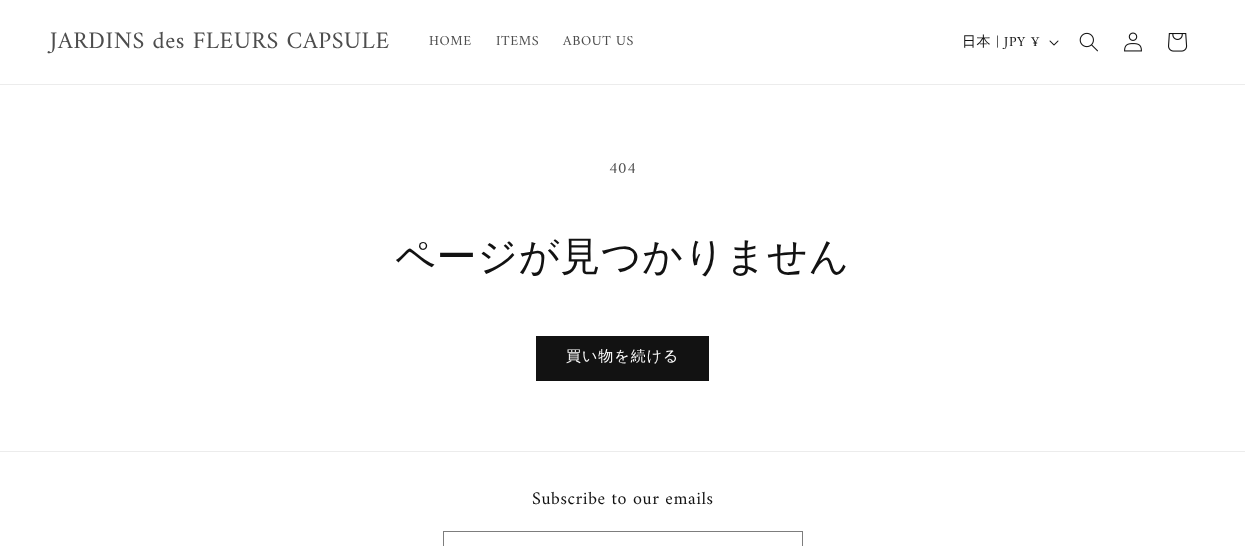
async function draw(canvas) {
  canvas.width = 1245;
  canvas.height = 546;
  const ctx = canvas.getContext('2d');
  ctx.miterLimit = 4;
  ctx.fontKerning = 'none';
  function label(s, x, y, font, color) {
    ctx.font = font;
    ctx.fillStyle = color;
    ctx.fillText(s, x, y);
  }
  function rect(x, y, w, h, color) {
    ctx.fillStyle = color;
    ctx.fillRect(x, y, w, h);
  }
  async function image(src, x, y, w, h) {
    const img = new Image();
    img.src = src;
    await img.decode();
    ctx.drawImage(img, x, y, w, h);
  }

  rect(0, 0, 1245, 546, '#fff');
  rect(0, 84, 1245, 1, '#ececec');
  ctx.letterSpacing = '0.6px';
  label('JARDINS des FLEURS CAPSULE', 50, 48, '24px Amiri', '#4d4d4d');
  label('HOME', 429, 45, '14px Amiri', '#4d4d4d');
  label('ITEMS', 496, 45, '14px Amiri', '#4d4d4d');
  label('ABOUT US', 563, 45, '14px Amiri', '#4d4d4d');
  label('日本', 962, 46, '500 14px WenQuanYi Zen Hei', '#121212');
  label('| JPY ¥', 996, 46, '14px Amiri', '#121212');
  await image('assets/img1.png', 1049, 40, 10, 6);
  await image('assets/img2.png', 1079, 32, 19, 20);
  await image('assets/img3.png', 1124, 32, 18, 20);
  await image('assets/img4.png', 1168, 33, 20, 19);
  label('404', 609, 173, '16px Amiri', '#4d4d4d');
  label('ページが見つかりません', 395, 270, '500 40px WenQuanYi Zen Hei', '#121212');
  rect(536, 336, 173, 45, '#121212');
  ctx.letterSpacing = '1px';
  label('買い物を続ける', 566, 361, '500 15px WenQuanYi Zen Hei', '#fff');
  rect(0, 451, 1245, 1, '#ececec');
  ctx.letterSpacing = '0.6px';
  label('Subscribe to our emails', 532, 504, '18px Amiri', '#121212');
  ctx.strokeStyle = '#7d7d7d';
  ctx.strokeRect(443.5, 531.5, 359, 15);
}

draw(document.querySelector('canvas'));
